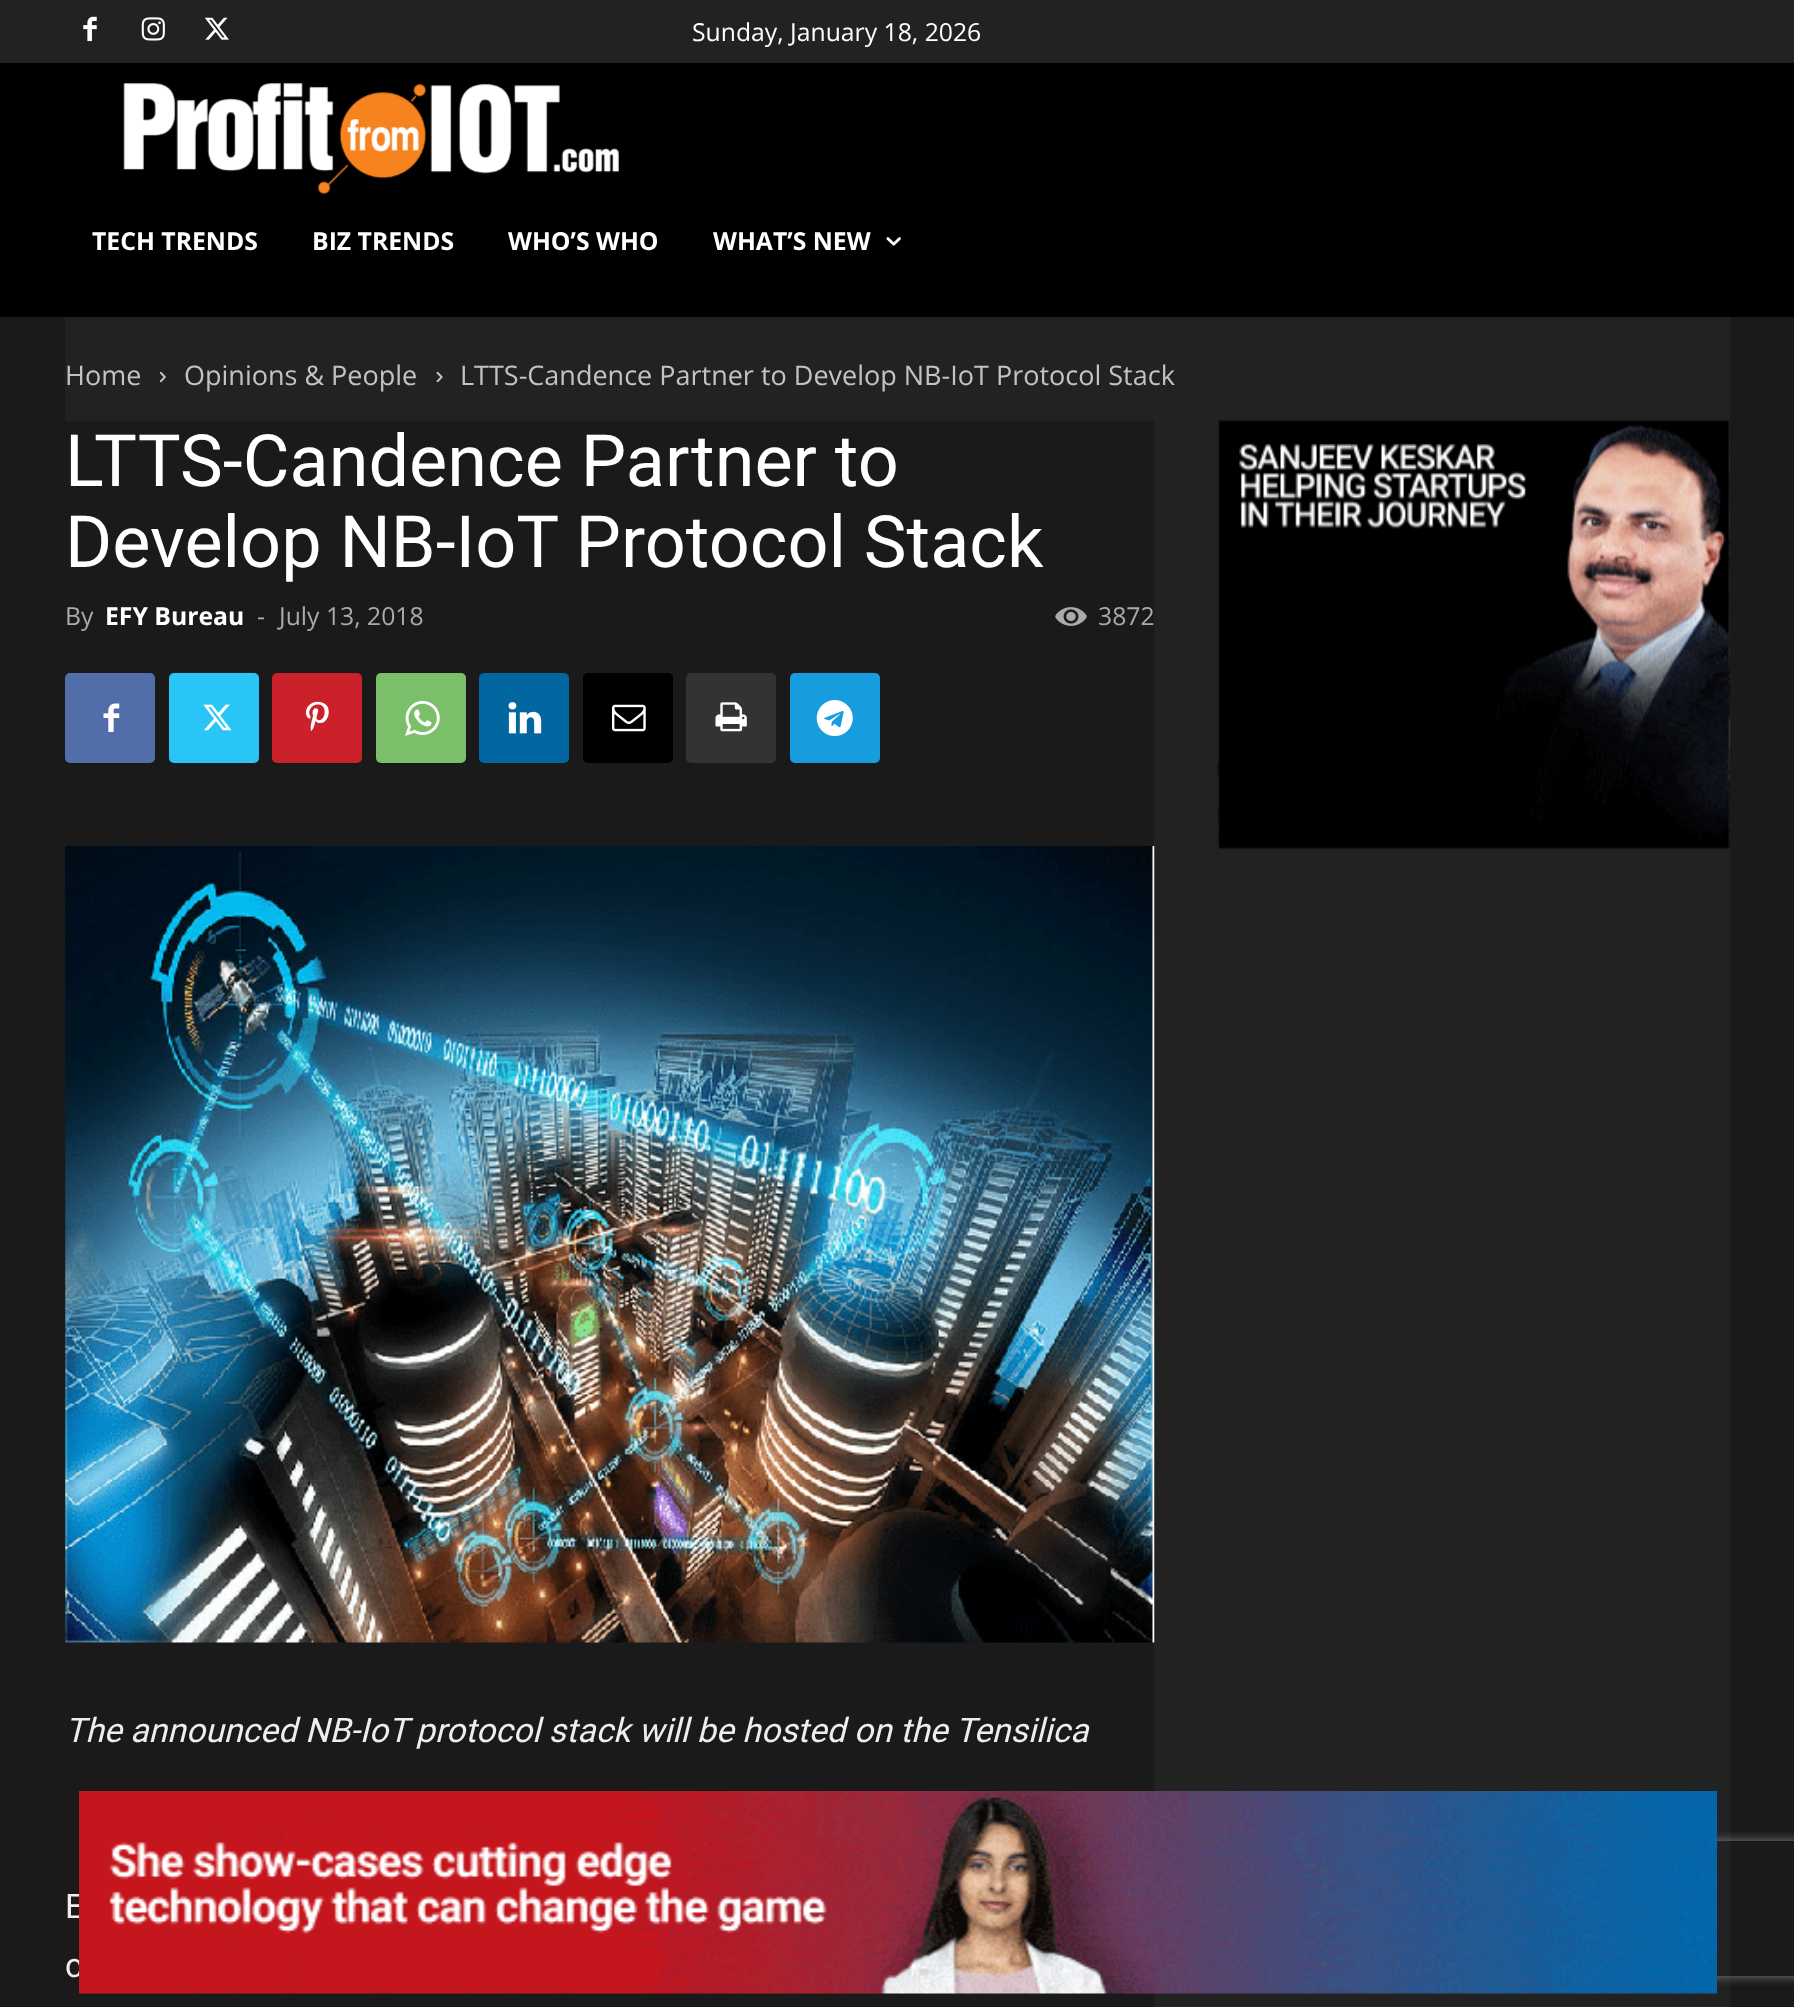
async function draw(canvas) {
  canvas.width = 1794;
  canvas.height = 2007;
  const ctx = canvas.getContext('2d');
  ctx.miterLimit = 4;
  ctx.fontKerning = 'normal';
  function label(s, x, y, font, color) {
    ctx.font = font;
    ctx.fillStyle = color;
    ctx.fillText(s, x, y);
  }
  function rect(x, y, w, h, color) {
    ctx.fillStyle = color;
    ctx.fillRect(x, y, w, h);
  }
  function roundedRect(x, y, w, h, r, color) {
    ctx.fillStyle = color;
    ctx.beginPath();
    ctx.roundRect(x, y, w, h, r);
    ctx.fill();
  }
  async function image(src, x, y, w, h) {
    const img = new Image();
    img.src = src;
    await img.decode();
    ctx.drawImage(img, x, y, w, h);
  }
  let path;

  rect(0, 0, 1794, 2007, '#1a1a1a');
  rect(0, 0, 1794, 63, '#222');
  await image('assets/img1.png', 83, 16, 14, 26);
  await image('assets/img2.png', 141, 17, 24, 24);
  await image('assets/img3.png', 204, 17, 25, 23);
  label('Sunday, January 18, 2026', 692, 41, '24.75px Open Sans', '#fff');
  rect(0, 63, 1794, 254, '#000');
  await image('assets/img4.png', 123, 83, 496, 112);
  label('TECH TRENDS', 92, 250, 'bold 24.75px Open Sans', '#fff');
  label('BIZ TRENDS', 312, 250, 'bold 24.75px Open Sans', '#fff');
  label('WHO’S WHO', 508, 250, 'bold 24.75px Open Sans', '#fff');
  label('WHAT’S NEW', 713, 250, 'bold 24.75px Open Sans', '#fff');
  await image('assets/img5.png', 886, 237, 15, 9);
  rect(65, 317, 1665, 1690, '#222');
  label('Home', 65, 385, '27px Open Sans', '#c3c3c3');
  await image('assets/img6.png', 159, 371, 7, 12);
  label('Opinions & People', 184, 385, '27px Open Sans', '#c3c3c3');
  await image('assets/img7.png', 436, 371, 7, 12);
  label('LTTS-Candence Partner to Develop NB-IoT Protocol Stack', 460, 385, '27px Open Sans', '#c3c3c3');
  rect(65, 421, 1089, 1586, '#1a1a1a');
  label('LTTS-Candence Partner to', 65, 486, '72px Roboto', '#fff');
  label('Develop NB-IoT Protocol Stack', 65, 567, '72px Roboto', '#fff');
  label('By', 65, 625, '24.75px Open Sans', '#aaa');
  label('EFY Bureau', 105, 625, 'bold 24.75px Open Sans', '#fff');
  label('-', 257, 625, '24.75px Open Sans', '#aaa');
  label('July 13, 2018', 279, 625, '24.75px Open Sans', '#aaa');
  await image('assets/img8.png', 1055, 607, 32, 19);
  label('3872', 1098, 625, '24.75px Open Sans', '#aaa');
  roundedRect(65, 673, 90, 90, 5, '#516eab');
  await image('assets/img9.png', 103, 703, 17, 29);
  roundedRect(169, 673, 90, 90, 5, '#29c5f6');
  await image('assets/img10.png', 203, 704, 29, 27);
  roundedRect(272, 673, 90, 90, 5, '#ca212a');
  await image('assets/img11.png', 306, 701, 23, 30);
  roundedRect(376, 673, 90, 90, 5, '#7bbf6a');
  await image('assets/img12.png', 405, 700, 35, 36);
  roundedRect(479, 673, 90, 90, 5, '#0266a0');
  await image('assets/img13.png', 508, 702, 34, 32);
  roundedRect(583, 673, 90, 90, 5, '#000');
  await image('assets/img14.png', 612, 704, 34, 28);
  roundedRect(686, 673, 90, 90, 5, '#333');
  await image('assets/img15.png', 715, 702, 32, 30);
  roundedRect(790, 673, 90, 90, 5, '#179cde');
  await image('assets/img16.png', 816, 700, 37, 37);
  await image('assets/img17.png', 65, 846, 1090, 797);
  label('The announced NB-IoT protocol stack will be hosted on the Tensilica', 65, 1742, 'italic 33.75px Roboto', '#eee');
  label('E', 65, 1918, '33.75px Roboto', '#eee');
  label('c', 65, 1977, '33.75px Roboto', '#eee');
  await image('assets/img18.png', 1217, 420, 514, 429);
  ctx.save();
  path = new Path2D('M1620 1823H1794V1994H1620ZM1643 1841H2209C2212 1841 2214 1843 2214 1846V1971C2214 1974 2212 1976 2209 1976H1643C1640 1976 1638 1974 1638 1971V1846C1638 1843 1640 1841 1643 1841Z');
  ctx.clip(path, 'evenodd');
  ctx.fillStyle = '#808080';
  ctx.filter = 'blur(5.5px)';
  ctx.beginPath();
  ctx.roundRect(1638, 1841, 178, 135, 5);
  ctx.fill();
  ctx.filter = 'none';
  ctx.restore();
  await image('assets/img19.png', 79, 1791, 1638, 203);
}

draw(document.querySelector('canvas'));
